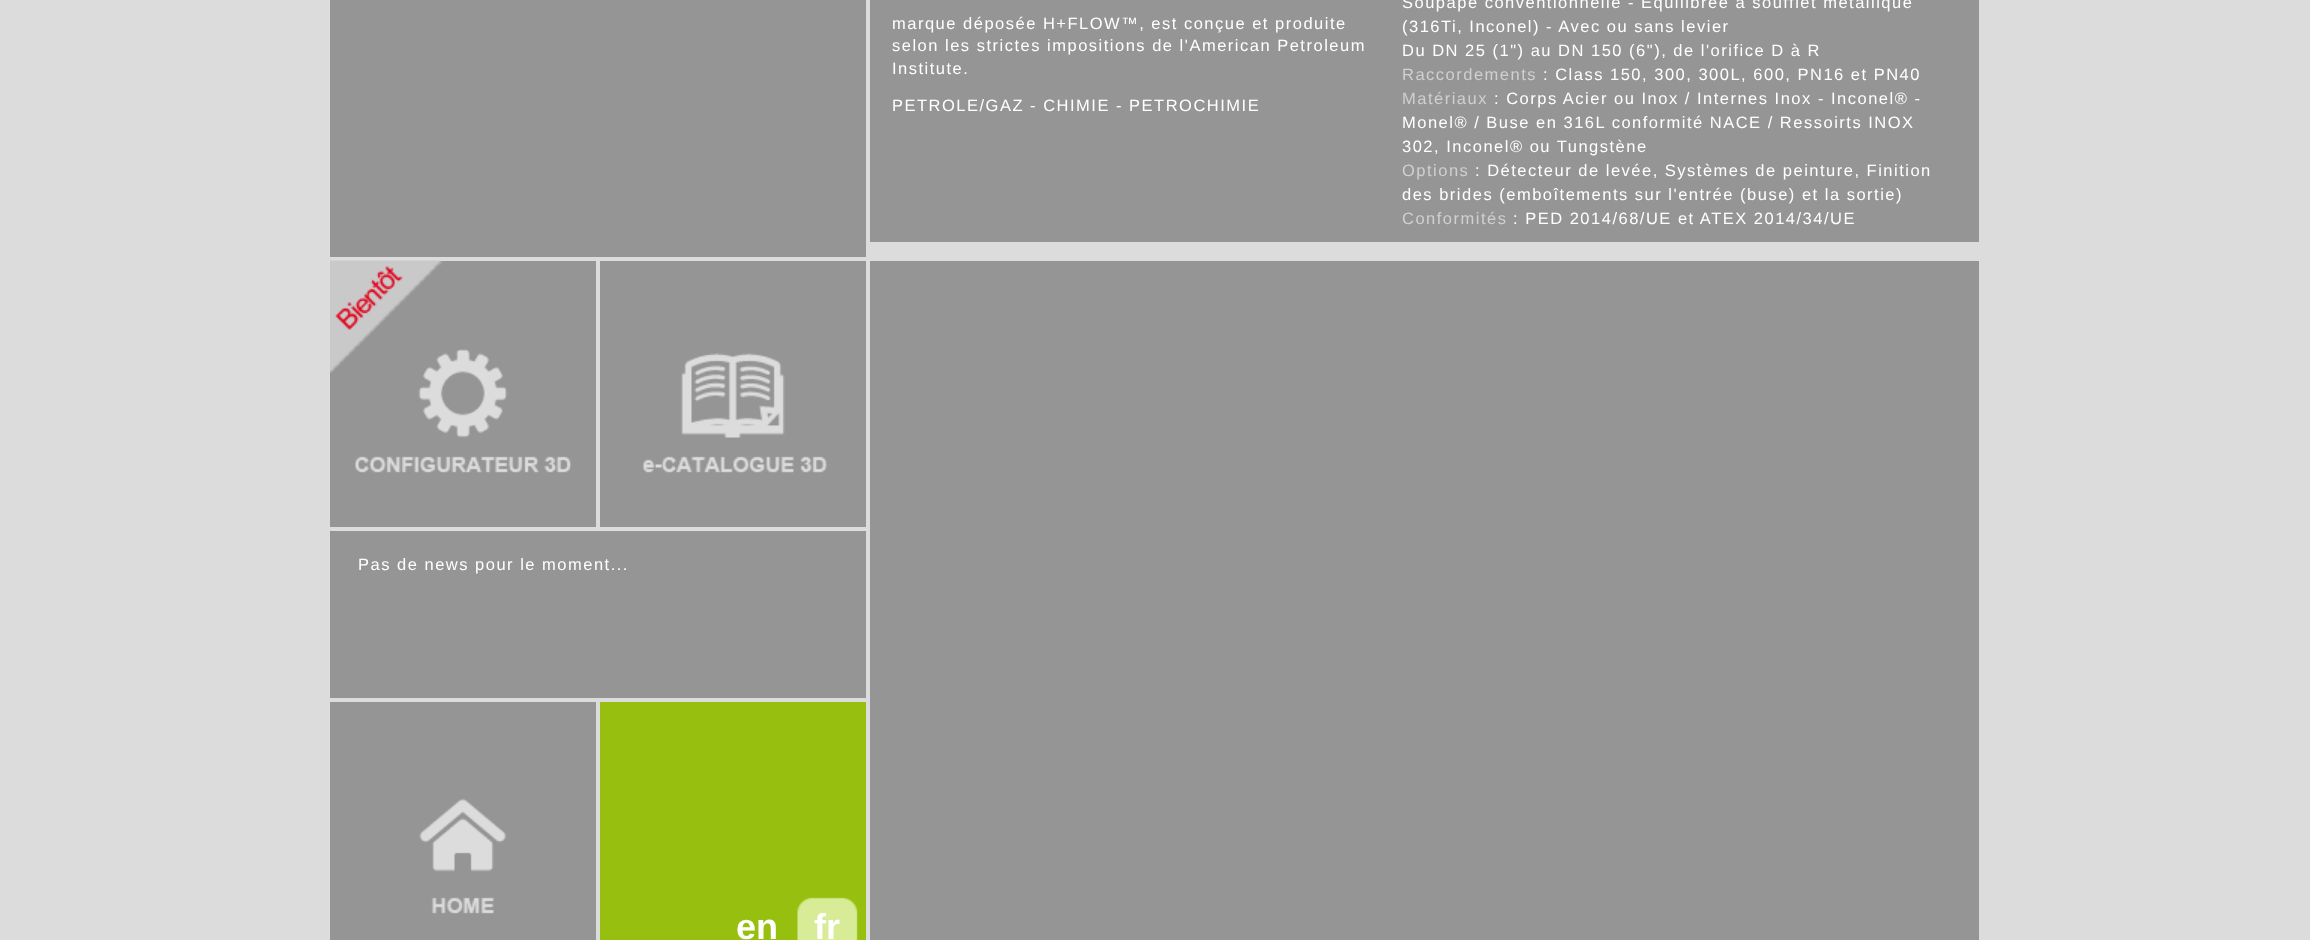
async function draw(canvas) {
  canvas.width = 2310;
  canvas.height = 940;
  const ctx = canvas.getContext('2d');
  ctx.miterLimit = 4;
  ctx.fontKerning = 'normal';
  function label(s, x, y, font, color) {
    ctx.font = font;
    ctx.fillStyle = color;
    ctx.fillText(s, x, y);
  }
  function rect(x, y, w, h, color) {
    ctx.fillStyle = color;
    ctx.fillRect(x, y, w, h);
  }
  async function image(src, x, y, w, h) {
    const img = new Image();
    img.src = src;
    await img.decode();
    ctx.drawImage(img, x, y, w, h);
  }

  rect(0, 0, 2310, 940, '#dcdcdc');
  rect(330, 0, 536, 257, '#959595');
  rect(870, 0, 1109, 242, '#959595');
  ctx.letterSpacing = '1.5px';
  label('marque déposée H+FLOW™, est conçue et produite', 892, 29, '16.5px Liberation Sans', '#fff');
  label('selon les strictes impositions de l\'American Petroleum', 892, 51, '16.5px Liberation Sans', '#fff');
  label('Institute.', 892, 74, '16.5px Liberation Sans', '#fff');
  label('PETROLE/GAZ - CHIMIE - PETROCHIMIE', 892, 111, '16.5px Liberation Sans', '#fff');
  label('Soupape conventionnelle - Equilibrée à soufflet métallique', 1402, 8, '16.5px Liberation Sans', '#fff');
  label('(316Ti, Inconel) - Avec ou sans levier', 1402, 32, '16.5px Liberation Sans', '#fff');
  label('Du DN 25 (1") au DN 150 (6"), de l\'orifice D à R', 1402, 56, '16.5px Liberation Sans', '#fff');
  label('Raccordements', 1402, 80, '16.5px Liberation Sans', '#d0d0d0');
  label(': Class 150, 300, 300L, 600, PN16 et PN40', 1543, 80, '16.5px Liberation Sans', '#fff');
  label('Matériaux', 1402, 104, '16.5px Liberation Sans', '#d0d0d0');
  label(': Corps Acier ou Inox / Internes Inox - Inconel® -', 1494, 104, '16.5px Liberation Sans', '#fff');
  label('Monel® / Buse en 316L conformité NACE / Ressoirts INOX', 1402, 128, '16.5px Liberation Sans', '#fff');
  label('302, Inconel® ou Tungstène', 1402, 152, '16.5px Liberation Sans', '#fff');
  label('Options', 1402, 176, '16.5px Liberation Sans', '#d0d0d0');
  label(': Détecteur de levée, Systèmes de peinture, Finition', 1475, 176, '16.5px Liberation Sans', '#fff');
  label('des brides (emboîtements sur l\'entrée (buse) et la sortie)', 1402, 200, '16.5px Liberation Sans', '#fff');
  label('Conformités', 1402, 224, '16.5px Liberation Sans', '#d0d0d0');
  label(': PED 2014/68/UE et ATEX 2014/34/UE', 1513, 224, '16.5px Liberation Sans', '#fff');
  rect(330, 261, 266, 266, '#959595');
  await image('assets/img1.png', 354, 349, 218, 124);
  await image('assets/img2.png', 330, 260, 113, 113);
  rect(600, 261, 266, 266, '#959595');
  await image('assets/img3.png', 642, 353, 185, 120);
  rect(330, 531, 536, 167, '#959595');
  label('Pas de news pour le moment...', 358, 570, '16.5px Liberation Sans', '#fff');
  rect(330, 702, 266, 238, '#959595');
  await image('assets/img4.png', 419, 798, 87, 116);
  rect(600, 702, 266, 238, '#96bf0f');
  ctx.letterSpacing = '0px';
  label('en', 736, 939, 'bold 36px Liberation Sans', '#fff');
  await image('assets/img5.png', 797, 897, 61, 43);
  label('fr', 814, 939, 'bold 36px Liberation Sans', '#fff');
  rect(870, 261, 1109, 679, '#959595');
}

draw(document.querySelector('canvas'));
